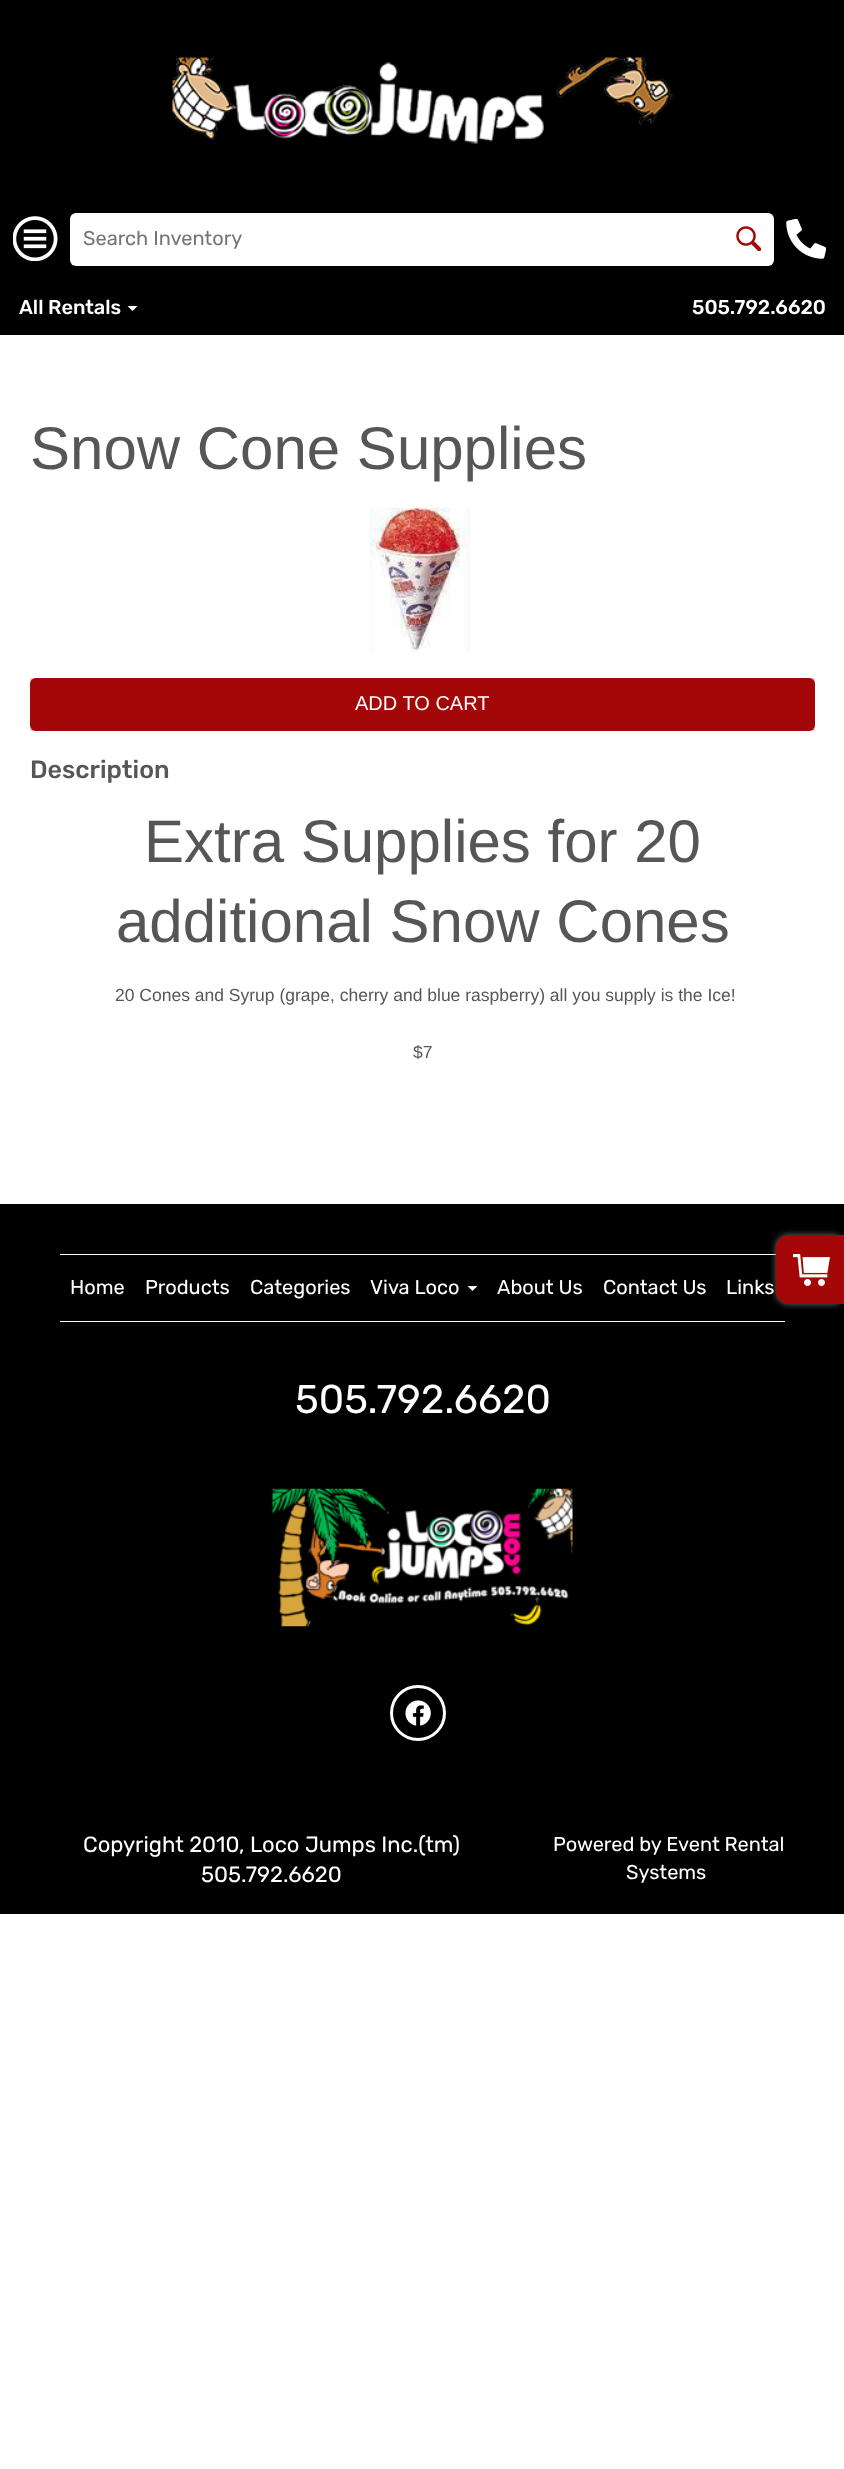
async function draw(canvas) {
  canvas.width = 844;
  canvas.height = 2469;
  const ctx = canvas.getContext('2d');
  ctx.miterLimit = 4;
  ctx.fontKerning = 'normal';
  function label(s, x, y, font, color) {
    ctx.font = font;
    ctx.fillStyle = color;
    ctx.fillText(s, x, y);
  }
  function rect(x, y, w, h, color) {
    ctx.fillStyle = color;
    ctx.fillRect(x, y, w, h);
  }
  function roundedRect(x, y, w, h, r, color) {
    ctx.fillStyle = color;
    ctx.beginPath();
    ctx.roundRect(x, y, w, h, r);
    ctx.fill();
  }
  async function image(src, x, y, w, h) {
    const img = new Image();
    img.src = src;
    await img.decode();
    ctx.drawImage(img, x, y, w, h);
  }
  let path;

  rect(0, 0, 844, 2469, '#fff');
  rect(0, 0, 844, 335, '#000');
  await image('assets/img1.png', 172, 57, 501, 87);
  await image('assets/img2.png', 13, 216, 45, 45);
  roundedRect(70, 213, 704, 53, 6, '#fff');
  label('Search Inventory', 83, 245, '20px Rubik', '#757575');
  await image('assets/img3.png', 736, 226, 25, 25);
  await image('assets/img4.png', 786, 219, 40, 40);
  label('All Rentals', 19, 314, '500 20px Rubik', '#fff');
  path = new Path2D('M127.5 306H137.5L132.5 311Z');
  ctx.fill(path);
  label('505.792.6620', 692, 314, '500 20px Rubik', '#fff');
  label('Snow Cone Supplies', 30, 469, '60px Liberation Sans', '#565656');
  await image('assets/img5.png', 369, 507, 102, 145);
  ctx.save();
  ctx.beginPath();
  ctx.rect(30, 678, 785, 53);
  ctx.clip();
  ctx.fillStyle = '#707070';
  ctx.filter = 'blur(3px)';
  ctx.beginPath();
  ctx.roundRect(30, 678, 785, 53, 6);
  ctx.fill();
  ctx.filter = 'none';
  ctx.restore();
  roundedRect(30, 678, 785, 53, 6, '#a40707');
  label('ADD TO CART', 355, 710, '20px Liberation Sans', '#fff');
  label('Description', 30, 778, '500 25px Rubik', '#565656');
  label('Extra Supplies for 20', 144, 862, '60px Liberation Sans', '#565656');
  label('additional Snow Cones', 116, 942, '60px Liberation Sans', '#565656');
  label('20 Cones and Syrup (grape, cherry and blue raspberry) all you supply is the Ice!', 115, 1001, '17.5px Liberation Sans', '#565656');
  label('$7', 413, 1058, '17.5px Liberation Sans', '#565656');
  rect(0, 1204, 844, 710, '#000');
  rect(60, 1254, 716, 1, '#fff');
  ctx.fillStyle = '#707070';
  ctx.filter = 'blur(3px)';
  ctx.beginPath();
  ctx.roundRect(776, 1235, 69, 69, 13);
  ctx.fill();
  ctx.filter = 'none';
  ctx.fillStyle = '#a40707';
  path = new Path2D('M789 1235H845V1304H789C782 1304 776 1298 776 1291V1248C776 1241 782 1235 789 1235Z');
  ctx.fill(path);
  await image('assets/img6.png', 793, 1254, 37, 32);
  rect(60, 1321, 725, 1, '#fff');
  label('Home', 70, 1294, '20px Rubik', '#fff');
  label('Products', 145, 1294, '20px Rubik', '#fff');
  label('Categories', 250, 1294, '20px Rubik', '#fff');
  label('Viva Loco', 370, 1294, '20px Rubik', '#fff');
  path = new Path2D('M467.5 1286H477.5L472.5 1291Z');
  ctx.fill(path);
  label('About Us', 497, 1294, '20px Rubik', '#fff');
  label('Contact Us', 603, 1294, '20px Rubik', '#fff');
  label('Links', 726, 1294, '20px Rubik', '#fff');
  label('505.792.6620', 295, 1413, '40px Rubik', '#fff');
  await image('assets/img7.png', 272, 1488, 301, 139);
  ctx.beginPath();
  ctx.arc(418, 1713, 26.5, 0, 2 * Math.PI);
  ctx.strokeStyle = '#fff';
  ctx.lineWidth = 3;
  ctx.stroke();
  await image('assets/img8.png', 405, 1700, 26, 26);
  label('Copyright 2010, Loco Jumps Inc.(tm)', 83, 1852, '22px Rubik', '#fff');
  label('505.792.6620', 201, 1882, '22px Rubik', '#fff');
  label('Powered by Event Rental', 553, 1851, '20px Rubik', '#fff');
  label('Systems', 626, 1879, '20px Rubik', '#fff');
}

draw(document.querySelector('canvas'));
